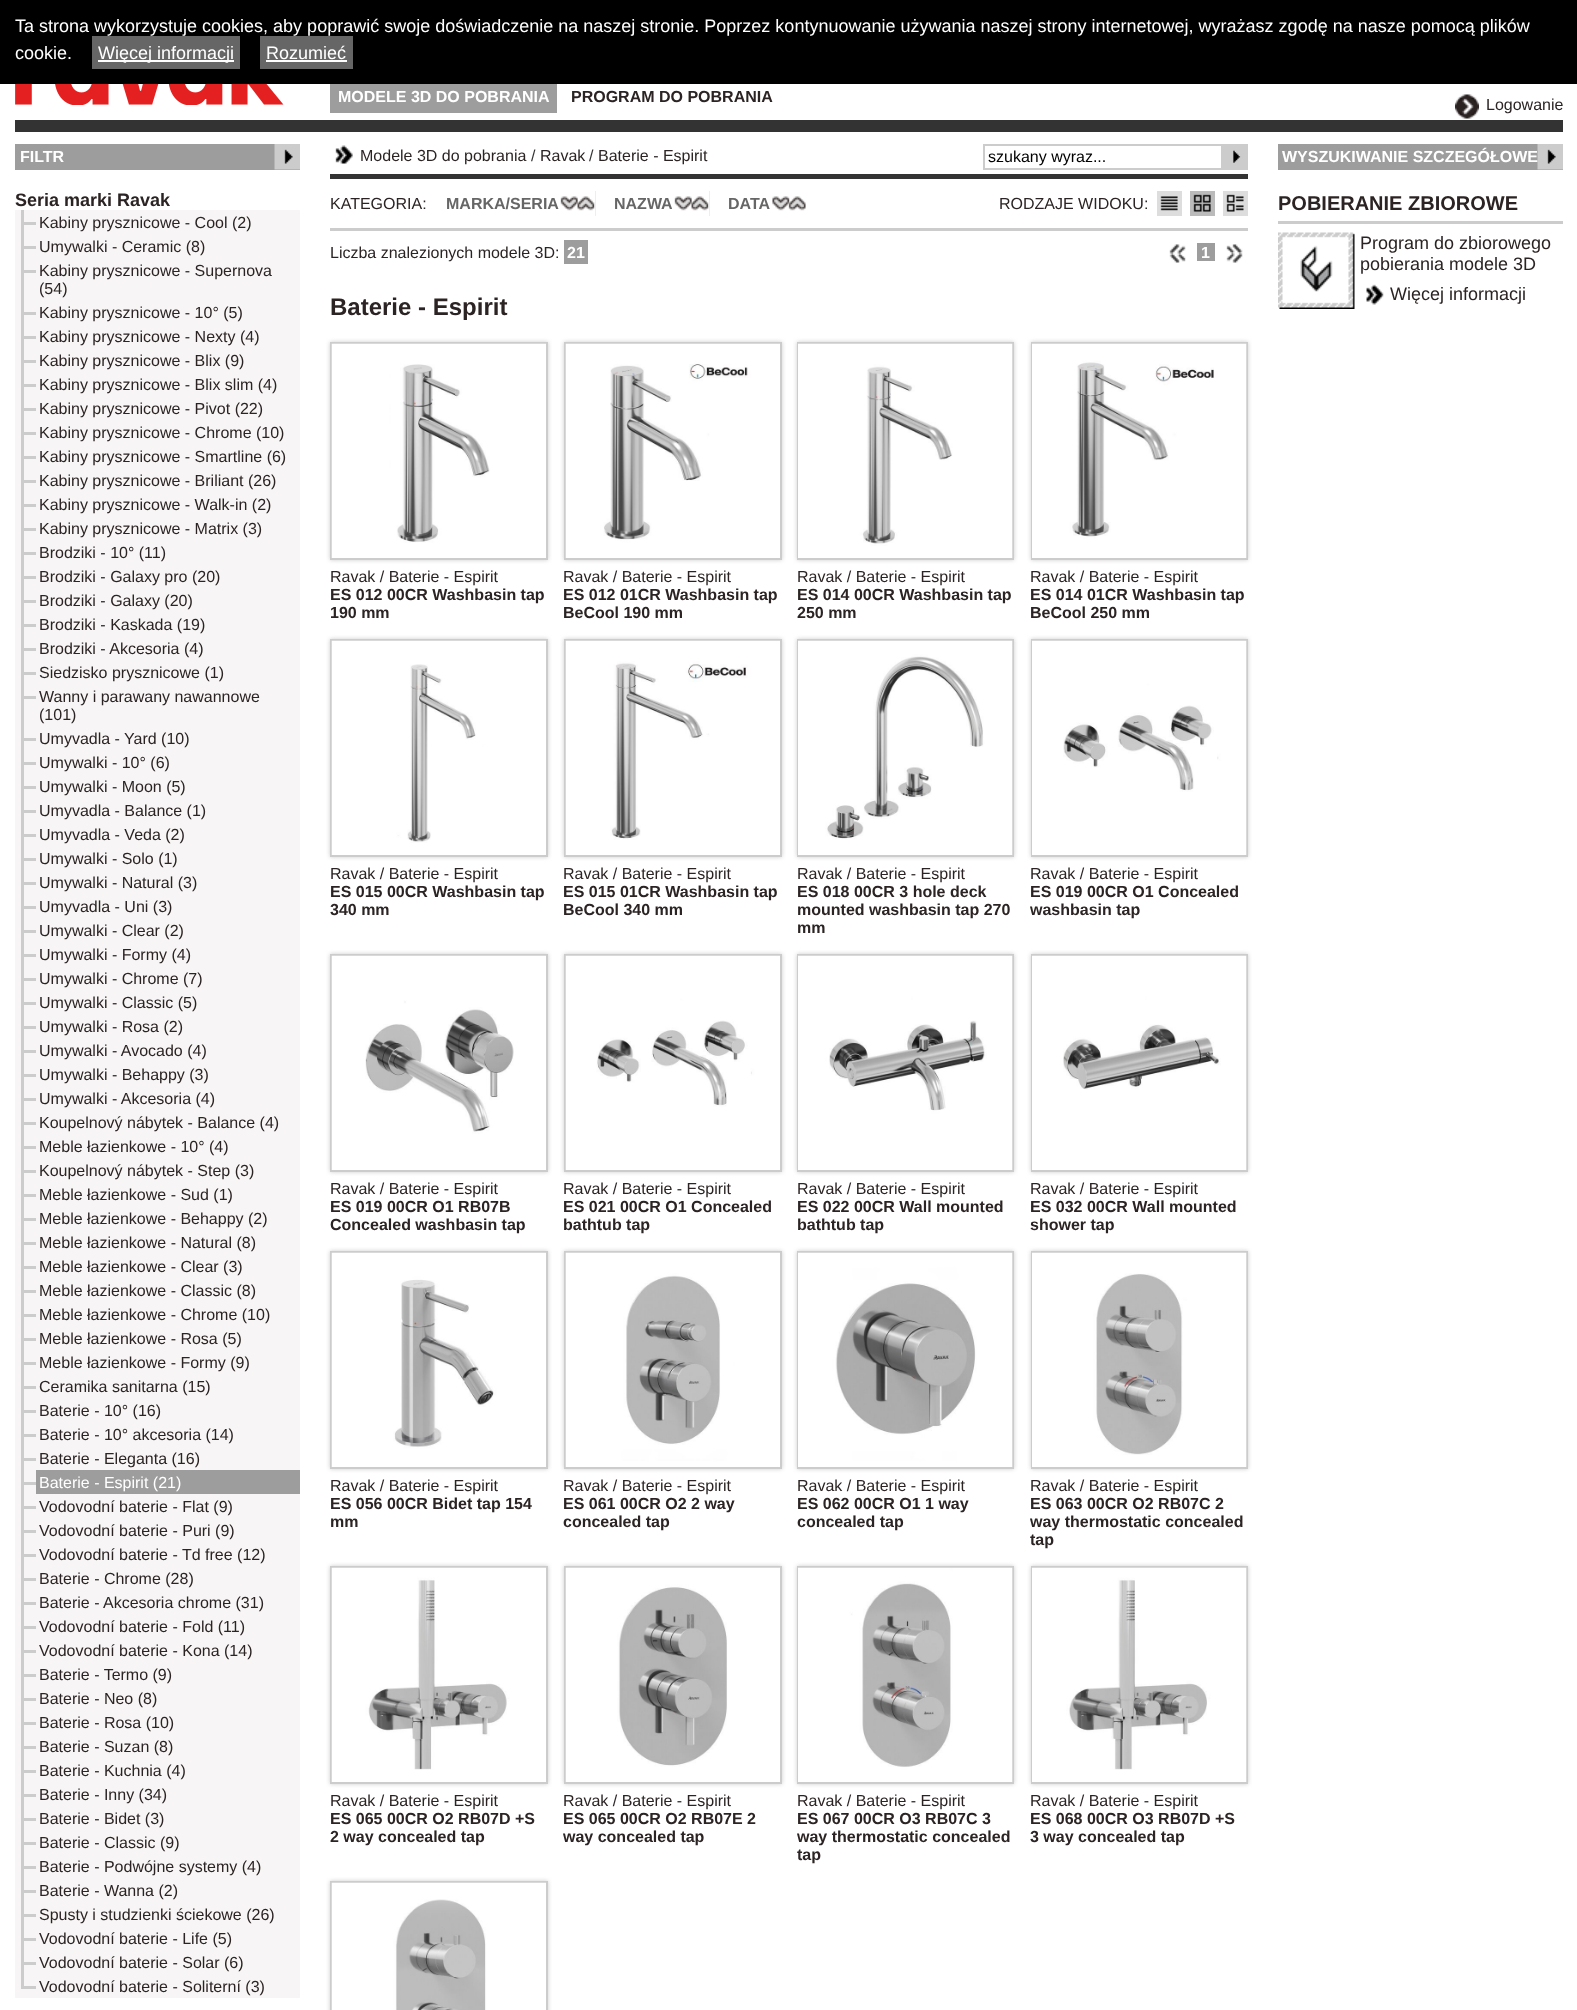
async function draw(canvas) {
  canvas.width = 1577;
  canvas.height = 2010;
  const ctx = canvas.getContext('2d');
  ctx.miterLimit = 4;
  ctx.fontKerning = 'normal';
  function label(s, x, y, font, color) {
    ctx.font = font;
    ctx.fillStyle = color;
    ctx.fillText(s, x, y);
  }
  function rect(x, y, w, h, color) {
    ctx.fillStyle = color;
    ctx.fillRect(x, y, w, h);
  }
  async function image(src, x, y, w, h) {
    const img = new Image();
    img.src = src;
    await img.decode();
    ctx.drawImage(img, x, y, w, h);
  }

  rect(0, 0, 1577, 2010, '#fff');
  rect(0, 0, 1577, 84, '#000');
  label('Ta strona wykorzystuje cookies, aby poprawić swoje doświadczenie na naszej stronie. Poprzez kontynuowanie używania naszej strony internetowej, wyrażasz zgodę na nasze pomocą plików', 15, 32, '18px Liberation Sans', '#fff');
  label('cookie.', 15, 59, '18px Liberation Sans', '#fff');
  rect(92, 36, 148, 33, '#666');
  rect(98, 60, 136, 2, '#fff');
  label('Więcej informacji', 98, 59, '18px Liberation Sans', '#fff');
  rect(260, 36, 93, 33, '#666');
  label('Rozumieć', 266, 59, '18px Liberation Sans', '#fff');
  rect(266, 60, 81, 2, '#fff');
  rect(15, 120, 1548, 12, '#333');
  await image('assets/img1.png', 15, 84, 269, 21);
  rect(330, 84, 227, 29, '#9d9d9d');
  label('MODELE 3D DO POBRANIA', 338, 102, 'bold 16px Liberation Sans', '#fff');
  label('PROGRAM DO POBRANIA', 571, 102, 'bold 16px Liberation Sans', '#2c2424');
  await image('assets/img2.png', 1455, 94, 24, 25);
  label('Logowanie', 1486, 110, '16px Liberation Sans', '#2c2424');
  rect(15, 144, 285, 26, '#9d9d9d');
  await image('assets/img3.png', 274, 144, 26, 26);
  label('FILTR', 20, 162, 'bold 16px Liberation Sans', '#fff');
  label('Seria marki Ravak', 15, 206, 'bold 18px Liberation Sans', '#2c2424');
  rect(15, 210, 285, 1260, '#f7f5f5');
  rect(15, 1470, 21, 24, '#f7f5f5');
  rect(15, 1494, 285, 504, '#f7f5f5');
  rect(21, 210, 3, 1764, '#ccc');
  label('Kabiny prysznicowe - Cool (2)', 39, 228, '16px Liberation Sans', '#2c2424');
  rect(21, 222, 15, 3, '#ccc');
  rect(21, 246, 15, 3, '#ccc');
  label('Umywalki - Ceramic (8)', 39, 252, '16px Liberation Sans', '#2c2424');
  rect(21, 270, 15, 3, '#ccc');
  label('Kabiny prysznicowe - Supernova', 39, 276, '16px Liberation Sans', '#2c2424');
  label('(54)', 39, 294, '16px Liberation Sans', '#2c2424');
  rect(21, 312, 15, 3, '#ccc');
  label('Kabiny prysznicowe - 10° (5)', 39, 318, '16px Liberation Sans', '#2c2424');
  rect(21, 336, 15, 3, '#ccc');
  label('Kabiny prysznicowe - Nexty (4)', 39, 342, '16px Liberation Sans', '#2c2424');
  rect(21, 360, 15, 3, '#ccc');
  label('Kabiny prysznicowe - Blix (9)', 39, 366, '16px Liberation Sans', '#2c2424');
  rect(21, 384, 15, 3, '#ccc');
  label('Kabiny prysznicowe - Blix slim (4)', 39, 390, '16px Liberation Sans', '#2c2424');
  rect(21, 408, 15, 3, '#ccc');
  label('Kabiny prysznicowe - Pivot (22)', 39, 414, '16px Liberation Sans', '#2c2424');
  rect(21, 432, 15, 3, '#ccc');
  label('Kabiny prysznicowe - Chrome (10)', 39, 438, '16px Liberation Sans', '#2c2424');
  rect(21, 456, 15, 3, '#ccc');
  label('Kabiny prysznicowe - Smartline (6)', 39, 462, '16px Liberation Sans', '#2c2424');
  rect(21, 480, 15, 3, '#ccc');
  label('Kabiny prysznicowe - Briliant (26)', 39, 486, '16px Liberation Sans', '#2c2424');
  rect(21, 504, 15, 3, '#ccc');
  label('Kabiny prysznicowe - Walk-in (2)', 39, 510, '16px Liberation Sans', '#2c2424');
  rect(21, 528, 15, 3, '#ccc');
  label('Kabiny prysznicowe - Matrix (3)', 39, 534, '16px Liberation Sans', '#2c2424');
  rect(21, 552, 15, 3, '#ccc');
  label('Brodziki - 10° (11)', 39, 558, '16px Liberation Sans', '#2c2424');
  rect(21, 576, 15, 3, '#ccc');
  label('Brodziki - Galaxy pro (20)', 39, 582, '16px Liberation Sans', '#2c2424');
  rect(21, 600, 15, 3, '#ccc');
  label('Brodziki - Galaxy (20)', 39, 606, '16px Liberation Sans', '#2c2424');
  rect(21, 624, 15, 3, '#ccc');
  label('Brodziki - Kaskada (19)', 39, 630, '16px Liberation Sans', '#2c2424');
  rect(21, 648, 15, 3, '#ccc');
  label('Brodziki - Akcesoria (4)', 39, 654, '16px Liberation Sans', '#2c2424');
  rect(21, 672, 15, 3, '#ccc');
  label('Siedzisko prysznicowe (1)', 39, 678, '16px Liberation Sans', '#2c2424');
  rect(21, 696, 15, 3, '#ccc');
  label('Wanny i parawany nawannowe', 39, 702, '16px Liberation Sans', '#2c2424');
  label('(101)', 39, 720, '16px Liberation Sans', '#2c2424');
  rect(21, 738, 15, 3, '#ccc');
  label('Umyvadla - Yard (10)', 39, 744, '16px Liberation Sans', '#2c2424');
  rect(21, 762, 15, 3, '#ccc');
  label('Umywalki - 10° (6)', 39, 768, '16px Liberation Sans', '#2c2424');
  rect(21, 786, 15, 3, '#ccc');
  label('Umywalki - Moon (5)', 39, 792, '16px Liberation Sans', '#2c2424');
  rect(21, 810, 15, 3, '#ccc');
  label('Umyvadla - Balance (1)', 39, 816, '16px Liberation Sans', '#2c2424');
  rect(21, 834, 15, 3, '#ccc');
  label('Umyvadla - Veda (2)', 39, 840, '16px Liberation Sans', '#2c2424');
  rect(21, 858, 15, 3, '#ccc');
  label('Umywalki - Solo (1)', 39, 864, '16px Liberation Sans', '#2c2424');
  rect(21, 882, 15, 3, '#ccc');
  label('Umywalki - Natural (3)', 39, 888, '16px Liberation Sans', '#2c2424');
  rect(21, 906, 15, 3, '#ccc');
  label('Umyvadla - Uni (3)', 39, 912, '16px Liberation Sans', '#2c2424');
  rect(21, 930, 15, 3, '#ccc');
  label('Umywalki - Clear (2)', 39, 936, '16px Liberation Sans', '#2c2424');
  rect(21, 954, 15, 3, '#ccc');
  label('Umywalki - Formy (4)', 39, 960, '16px Liberation Sans', '#2c2424');
  rect(21, 978, 15, 3, '#ccc');
  label('Umywalki - Chrome (7)', 39, 984, '16px Liberation Sans', '#2c2424');
  rect(21, 1002, 15, 3, '#ccc');
  label('Umywalki - Classic (5)', 39, 1008, '16px Liberation Sans', '#2c2424');
  rect(21, 1026, 15, 3, '#ccc');
  label('Umywalki - Rosa (2)', 39, 1032, '16px Liberation Sans', '#2c2424');
  rect(21, 1050, 15, 3, '#ccc');
  label('Umywalki - Avocado (4)', 39, 1056, '16px Liberation Sans', '#2c2424');
  rect(21, 1074, 15, 3, '#ccc');
  label('Umywalki - Behappy (3)', 39, 1080, '16px Liberation Sans', '#2c2424');
  rect(21, 1098, 15, 3, '#ccc');
  label('Umywalki - Akcesoria (4)', 39, 1104, '16px Liberation Sans', '#2c2424');
  rect(21, 1122, 15, 3, '#ccc');
  label('Koupelnový nábytek - Balance (4)', 39, 1128, '16px Liberation Sans', '#2c2424');
  rect(21, 1146, 15, 3, '#ccc');
  label('Meble łazienkowe - 10° (4)', 39, 1152, '16px Liberation Sans', '#2c2424');
  rect(21, 1170, 15, 3, '#ccc');
  label('Koupelnový nábytek - Step (3)', 39, 1176, '16px Liberation Sans', '#2c2424');
  rect(21, 1194, 15, 3, '#ccc');
  label('Meble łazienkowe - Sud (1)', 39, 1200, '16px Liberation Sans', '#2c2424');
  rect(21, 1218, 15, 3, '#ccc');
  label('Meble łazienkowe - Behappy (2)', 39, 1224, '16px Liberation Sans', '#2c2424');
  rect(21, 1242, 15, 3, '#ccc');
  label('Meble łazienkowe - Natural (8)', 39, 1248, '16px Liberation Sans', '#2c2424');
  rect(21, 1266, 15, 3, '#ccc');
  label('Meble łazienkowe - Clear (3)', 39, 1272, '16px Liberation Sans', '#2c2424');
  rect(21, 1290, 15, 3, '#ccc');
  label('Meble łazienkowe - Classic (8)', 39, 1296, '16px Liberation Sans', '#2c2424');
  rect(21, 1314, 15, 3, '#ccc');
  label('Meble łazienkowe - Chrome (10)', 39, 1320, '16px Liberation Sans', '#2c2424');
  rect(21, 1338, 15, 3, '#ccc');
  label('Meble łazienkowe - Rosa (5)', 39, 1344, '16px Liberation Sans', '#2c2424');
  rect(21, 1362, 15, 3, '#ccc');
  label('Meble łazienkowe - Formy (9)', 39, 1368, '16px Liberation Sans', '#2c2424');
  rect(21, 1386, 15, 3, '#ccc');
  label('Ceramika sanitarna (15)', 39, 1392, '16px Liberation Sans', '#2c2424');
  rect(21, 1410, 15, 3, '#ccc');
  label('Baterie - 10° (16)', 39, 1416, '16px Liberation Sans', '#2c2424');
  rect(21, 1434, 15, 3, '#ccc');
  label('Baterie - 10° akcesoria (14)', 39, 1440, '16px Liberation Sans', '#2c2424');
  rect(21, 1458, 15, 3, '#ccc');
  label('Baterie - Eleganta (16)', 39, 1464, '16px Liberation Sans', '#2c2424');
  rect(21, 1482, 15, 3, '#ccc');
  rect(36, 1470, 264, 24, '#9d9d9d');
  label('Baterie - Espirit (21)', 39, 1488, '16px Liberation Sans', '#fff');
  rect(21, 1506, 15, 3, '#ccc');
  label('Vodovodní baterie - Flat (9)', 39, 1512, '16px Liberation Sans', '#2c2424');
  rect(21, 1530, 15, 3, '#ccc');
  label('Vodovodní baterie - Puri (9)', 39, 1536, '16px Liberation Sans', '#2c2424');
  rect(21, 1554, 15, 3, '#ccc');
  label('Vodovodní baterie - Td free (12)', 39, 1560, '16px Liberation Sans', '#2c2424');
  rect(21, 1578, 15, 3, '#ccc');
  label('Baterie - Chrome (28)', 39, 1584, '16px Liberation Sans', '#2c2424');
  rect(21, 1602, 15, 3, '#ccc');
  label('Baterie - Akcesoria chrome (31)', 39, 1608, '16px Liberation Sans', '#2c2424');
  rect(21, 1626, 15, 3, '#ccc');
  label('Vodovodní baterie - Fold (11)', 39, 1632, '16px Liberation Sans', '#2c2424');
  rect(21, 1650, 15, 3, '#ccc');
  label('Vodovodní baterie - Kona (14)', 39, 1656, '16px Liberation Sans', '#2c2424');
  rect(21, 1674, 15, 3, '#ccc');
  label('Baterie - Termo (9)', 39, 1680, '16px Liberation Sans', '#2c2424');
  rect(21, 1698, 15, 3, '#ccc');
  label('Baterie - Neo (8)', 39, 1704, '16px Liberation Sans', '#2c2424');
  rect(21, 1722, 15, 3, '#ccc');
  label('Baterie - Rosa (10)', 39, 1728, '16px Liberation Sans', '#2c2424');
  rect(21, 1746, 15, 3, '#ccc');
  label('Baterie - Suzan (8)', 39, 1752, '16px Liberation Sans', '#2c2424');
  rect(21, 1770, 15, 3, '#ccc');
  label('Baterie - Kuchnia (4)', 39, 1776, '16px Liberation Sans', '#2c2424');
  rect(21, 1794, 15, 3, '#ccc');
  label('Baterie - Inny (34)', 39, 1800, '16px Liberation Sans', '#2c2424');
  rect(21, 1818, 15, 3, '#ccc');
  label('Baterie - Bidet (3)', 39, 1824, '16px Liberation Sans', '#2c2424');
  rect(21, 1842, 15, 3, '#ccc');
  label('Baterie - Classic (9)', 39, 1848, '16px Liberation Sans', '#2c2424');
  rect(21, 1866, 15, 3, '#ccc');
  label('Baterie - Podwójne systemy (4)', 39, 1872, '16px Liberation Sans', '#2c2424');
  rect(21, 1890, 15, 3, '#ccc');
  label('Baterie - Wanna (2)', 39, 1896, '16px Liberation Sans', '#2c2424');
  rect(21, 1914, 15, 3, '#ccc');
  label('Spusty i studzienki ściekowe (26)', 39, 1920, '16px Liberation Sans', '#2c2424');
  rect(21, 1938, 15, 3, '#ccc');
  label('Vodovodní baterie - Life (5)', 39, 1944, '16px Liberation Sans', '#2c2424');
  rect(21, 1962, 15, 3, '#ccc');
  label('Vodovodní baterie - Solar (6)', 39, 1968, '16px Liberation Sans', '#2c2424');
  rect(21, 1986, 15, 3, '#ccc');
  rect(21, 1974, 3, 15, '#ccc');
  label('Vodovodní baterie - Soliterní (3)', 39, 1992, '16px Liberation Sans', '#2c2424');
  await image('assets/img4.png', 335, 145, 18, 19);
  label('Modele 3D do pobrania', 360, 161, '16px Liberation Sans', '#2c2424');
  label('/', 531, 161, '16px Liberation Sans', '#333');
  label('Ravak', 540, 161, '16px Liberation Sans', '#2c2424');
  label('/', 589, 161, '16px Liberation Sans', '#333');
  label('Baterie - Espirit', 598, 161, '16px Liberation Sans', '#2c2424');
  ctx.strokeStyle = '#ccc';
  ctx.lineWidth = 2;
  ctx.strokeRect(984, 145, 238, 24);
  label('szukany wyraz...', 988, 162, '16px Liberation Sans', '#000');
  ctx.strokeRect(1224, 145, 23, 24);
  await image('assets/img5.png', 1225, 146, 21, 22);
  rect(330, 174, 918, 5, '#333');
  rect(330, 228, 918, 3, '#ccc');
  label('KATEGORIA:', 330, 209, '16px Liberation Sans', '#2c2424');
  rect(578, 191, 18, 25, '#ddd');
  rect(560, 196, 18, 15, '#ddd');
  label('MARKA/SERIA', 446, 209, 'bold 16px Liberation Sans', '#666');
  await image('assets/img6.png', 560, 191, 36, 25);
  rect(692, 191, 18, 25, '#ddd');
  rect(674, 196, 18, 15, '#ddd');
  label('NAZWA', 614, 209, 'bold 16px Liberation Sans', '#666');
  await image('assets/img6.png', 674, 191, 36, 25);
  rect(772, 196, 34, 15, '#ddd');
  await image('assets/img7.png', 771, 191, 36, 25);
  label('DATA', 728, 209, 'bold 16px Liberation Sans', '#666');
  label('RODZAJE WIDOKU:', 999, 209, '16px Liberation Sans', '#2c2424');
  rect(1157, 191, 25, 25, '#ddd');
  await image('assets/img8.png', 1160, 196, 18, 15);
  rect(1190, 191, 25, 25, '#bbb');
  await image('assets/img9.png', 1193, 194, 18, 18);
  rect(1223, 191, 25, 25, '#ddd');
  await image('assets/img10.png', 1226, 194, 18, 18);
  label('Liczba znalezionych modele 3D:', 330, 258, '16px Liberation Sans', '#2c2424');
  rect(564, 240, 24, 24, '#9d9d9d');
  label('21', 567, 258, 'bold 16px Liberation Sans', '#fff');
  await image('assets/img11.png', 1169, 244, 17, 19);
  rect(1197, 243, 18, 18, '#9d9d9d');
  label('1', 1201, 258, 'bold 16px Liberation Sans', '#fff');
  await image('assets/img12.png', 1226, 244, 17, 19);
  label('Baterie - Espirit', 330, 315, 'bold 24px Liberation Sans', '#2c2424');
  ctx.fillStyle = '#ccc';
  ctx.filter = 'blur(2px)';
  ctx.beginPath();
  ctx.rect(330, 342, 218, 218);
  ctx.fill();
  ctx.filter = 'none';
  ctx.strokeRect(331, 343, 216, 216);
  await image('assets/img13.png', 331, 343, 215, 215);
  label('Ravak / Baterie - Espirit', 330, 582, '16px Liberation Sans', '#2c2424');
  label('ES 012 00CR Washbasin tap', 330, 600, 'bold 16px Liberation Sans', '#2c2424');
  label('190 mm', 330, 618, 'bold 16px Liberation Sans', '#2c2424');
  ctx.fillStyle = '#ccc';
  ctx.filter = 'blur(2px)';
  ctx.beginPath();
  ctx.rect(564, 342, 218, 218);
  ctx.fill();
  ctx.filter = 'none';
  ctx.strokeRect(565, 343, 216, 216);
  await image('assets/img14.png', 565, 343, 215, 215);
  label('Ravak / Baterie - Espirit', 563, 582, '16px Liberation Sans', '#2c2424');
  label('ES 012 01CR Washbasin tap', 563, 600, 'bold 16px Liberation Sans', '#2c2424');
  label('BeCool 190 mm', 563, 618, 'bold 16px Liberation Sans', '#2c2424');
  ctx.fillStyle = '#ccc';
  ctx.filter = 'blur(2px)';
  ctx.beginPath();
  ctx.rect(797, 342, 217, 218);
  ctx.fill();
  ctx.filter = 'none';
  ctx.strokeRect(798, 343, 215, 216);
  await image('assets/img15.png', 798, 343, 215, 215);
  label('Ravak / Baterie - Espirit', 797, 582, '16px Liberation Sans', '#2c2424');
  label('ES 014 00CR Washbasin tap', 797, 600, 'bold 16px Liberation Sans', '#2c2424');
  label('250 mm', 797, 618, 'bold 16px Liberation Sans', '#2c2424');
  ctx.fillStyle = '#ccc';
  ctx.filter = 'blur(2px)';
  ctx.beginPath();
  ctx.rect(1031, 342, 217, 218);
  ctx.fill();
  ctx.filter = 'none';
  ctx.strokeRect(1032, 343, 215, 216);
  await image('assets/img16.png', 1032, 343, 215, 215);
  label('Ravak / Baterie - Espirit', 1030, 582, '16px Liberation Sans', '#2c2424');
  label('ES 014 01CR Washbasin tap', 1030, 600, 'bold 16px Liberation Sans', '#2c2424');
  label('BeCool 250 mm', 1030, 618, 'bold 16px Liberation Sans', '#2c2424');
  ctx.fillStyle = '#ccc';
  ctx.filter = 'blur(2px)';
  ctx.beginPath();
  ctx.rect(330, 639, 218, 218);
  ctx.fill();
  ctx.filter = 'none';
  ctx.strokeRect(331, 640, 216, 216);
  await image('assets/img17.png', 331, 640, 215, 215);
  label('Ravak / Baterie - Espirit', 330, 879, '16px Liberation Sans', '#2c2424');
  label('ES 015 00CR Washbasin tap', 330, 897, 'bold 16px Liberation Sans', '#2c2424');
  label('340 mm', 330, 915, 'bold 16px Liberation Sans', '#2c2424');
  ctx.fillStyle = '#ccc';
  ctx.filter = 'blur(2px)';
  ctx.beginPath();
  ctx.rect(564, 639, 218, 218);
  ctx.fill();
  ctx.filter = 'none';
  ctx.strokeRect(565, 640, 216, 216);
  await image('assets/img18.png', 565, 640, 215, 215);
  label('Ravak / Baterie - Espirit', 563, 879, '16px Liberation Sans', '#2c2424');
  label('ES 015 01CR Washbasin tap', 563, 897, 'bold 16px Liberation Sans', '#2c2424');
  label('BeCool 340 mm', 563, 915, 'bold 16px Liberation Sans', '#2c2424');
  ctx.fillStyle = '#ccc';
  ctx.filter = 'blur(2px)';
  ctx.beginPath();
  ctx.rect(797, 639, 217, 218);
  ctx.fill();
  ctx.filter = 'none';
  ctx.strokeRect(798, 640, 215, 216);
  await image('assets/img19.png', 798, 640, 215, 215);
  label('Ravak / Baterie - Espirit', 797, 879, '16px Liberation Sans', '#2c2424');
  label('ES 018 00CR 3 hole deck', 797, 897, 'bold 16px Liberation Sans', '#2c2424');
  label('mounted washbasin tap 270', 797, 915, 'bold 16px Liberation Sans', '#2c2424');
  label('mm', 797, 933, 'bold 16px Liberation Sans', '#2c2424');
  ctx.fillStyle = '#ccc';
  ctx.filter = 'blur(2px)';
  ctx.beginPath();
  ctx.rect(1031, 639, 217, 218);
  ctx.fill();
  ctx.filter = 'none';
  ctx.strokeRect(1032, 640, 215, 216);
  await image('assets/img20.png', 1032, 640, 215, 215);
  label('Ravak / Baterie - Espirit', 1030, 879, '16px Liberation Sans', '#2c2424');
  label('ES 019 00CR O1 Concealed', 1030, 897, 'bold 16px Liberation Sans', '#2c2424');
  label('washbasin tap', 1030, 915, 'bold 16px Liberation Sans', '#2c2424');
  ctx.fillStyle = '#ccc';
  ctx.filter = 'blur(2px)';
  ctx.beginPath();
  ctx.rect(330, 954, 218, 218);
  ctx.fill();
  ctx.filter = 'none';
  ctx.strokeRect(331, 955, 216, 216);
  await image('assets/img21.png', 331, 955, 215, 215);
  label('Ravak / Baterie - Espirit', 330, 1194, '16px Liberation Sans', '#2c2424');
  label('ES 019 00CR O1 RB07B', 330, 1212, 'bold 16px Liberation Sans', '#2c2424');
  label('Concealed washbasin tap', 330, 1230, 'bold 16px Liberation Sans', '#2c2424');
  ctx.fillStyle = '#ccc';
  ctx.filter = 'blur(2px)';
  ctx.beginPath();
  ctx.rect(564, 954, 218, 218);
  ctx.fill();
  ctx.filter = 'none';
  ctx.strokeRect(565, 955, 216, 216);
  await image('assets/img22.png', 565, 955, 215, 215);
  label('Ravak / Baterie - Espirit', 563, 1194, '16px Liberation Sans', '#2c2424');
  label('ES 021 00CR O1 Concealed', 563, 1212, 'bold 16px Liberation Sans', '#2c2424');
  label('bathtub tap', 563, 1230, 'bold 16px Liberation Sans', '#2c2424');
  ctx.fillStyle = '#ccc';
  ctx.filter = 'blur(2px)';
  ctx.beginPath();
  ctx.rect(797, 954, 217, 218);
  ctx.fill();
  ctx.filter = 'none';
  ctx.strokeRect(798, 955, 215, 216);
  await image('assets/img23.png', 798, 955, 215, 215);
  label('Ravak / Baterie - Espirit', 797, 1194, '16px Liberation Sans', '#2c2424');
  label('ES 022 00CR Wall mounted', 797, 1212, 'bold 16px Liberation Sans', '#2c2424');
  label('bathtub tap', 797, 1230, 'bold 16px Liberation Sans', '#2c2424');
  ctx.fillStyle = '#ccc';
  ctx.filter = 'blur(2px)';
  ctx.beginPath();
  ctx.rect(1031, 954, 217, 218);
  ctx.fill();
  ctx.filter = 'none';
  ctx.strokeRect(1032, 955, 215, 216);
  await image('assets/img24.png', 1032, 955, 215, 215);
  label('Ravak / Baterie - Espirit', 1030, 1194, '16px Liberation Sans', '#2c2424');
  label('ES 032 00CR Wall mounted', 1030, 1212, 'bold 16px Liberation Sans', '#2c2424');
  label('shower tap', 1030, 1230, 'bold 16px Liberation Sans', '#2c2424');
  ctx.fillStyle = '#ccc';
  ctx.filter = 'blur(2px)';
  ctx.beginPath();
  ctx.rect(330, 1251, 218, 218);
  ctx.fill();
  ctx.filter = 'none';
  ctx.strokeRect(331, 1252, 216, 216);
  await image('assets/img25.png', 331, 1252, 215, 215);
  label('Ravak / Baterie - Espirit', 330, 1491, '16px Liberation Sans', '#2c2424');
  label('ES 056 00CR Bidet tap 154', 330, 1509, 'bold 16px Liberation Sans', '#2c2424');
  label('mm', 330, 1527, 'bold 16px Liberation Sans', '#2c2424');
  ctx.fillStyle = '#ccc';
  ctx.filter = 'blur(2px)';
  ctx.beginPath();
  ctx.rect(564, 1251, 218, 218);
  ctx.fill();
  ctx.filter = 'none';
  ctx.strokeRect(565, 1252, 216, 216);
  await image('assets/img26.png', 565, 1252, 215, 215);
  label('Ravak / Baterie - Espirit', 563, 1491, '16px Liberation Sans', '#2c2424');
  label('ES 061 00CR O2 2 way', 563, 1509, 'bold 16px Liberation Sans', '#2c2424');
  label('concealed tap', 563, 1527, 'bold 16px Liberation Sans', '#2c2424');
  ctx.fillStyle = '#ccc';
  ctx.filter = 'blur(2px)';
  ctx.beginPath();
  ctx.rect(797, 1251, 217, 218);
  ctx.fill();
  ctx.filter = 'none';
  ctx.strokeRect(798, 1252, 215, 216);
  await image('assets/img27.png', 798, 1252, 215, 215);
  label('Ravak / Baterie - Espirit', 797, 1491, '16px Liberation Sans', '#2c2424');
  label('ES 062 00CR O1 1 way', 797, 1509, 'bold 16px Liberation Sans', '#2c2424');
  label('concealed tap', 797, 1527, 'bold 16px Liberation Sans', '#2c2424');
  ctx.fillStyle = '#ccc';
  ctx.filter = 'blur(2px)';
  ctx.beginPath();
  ctx.rect(1031, 1251, 217, 218);
  ctx.fill();
  ctx.filter = 'none';
  ctx.strokeRect(1032, 1252, 215, 216);
  await image('assets/img28.png', 1032, 1252, 215, 215);
  label('Ravak / Baterie - Espirit', 1030, 1491, '16px Liberation Sans', '#2c2424');
  label('ES 063 00CR O2 RB07C 2', 1030, 1509, 'bold 16px Liberation Sans', '#2c2424');
  label('way thermostatic concealed', 1030, 1527, 'bold 16px Liberation Sans', '#2c2424');
  label('tap', 1030, 1545, 'bold 16px Liberation Sans', '#2c2424');
  ctx.fillStyle = '#ccc';
  ctx.filter = 'blur(2px)';
  ctx.beginPath();
  ctx.rect(330, 1566, 218, 218);
  ctx.fill();
  ctx.filter = 'none';
  ctx.strokeRect(331, 1567, 216, 216);
  await image('assets/img29.png', 331, 1567, 215, 215);
  label('Ravak / Baterie - Espirit', 330, 1806, '16px Liberation Sans', '#2c2424');
  label('ES 065 00CR O2 RB07D +S', 330, 1824, 'bold 16px Liberation Sans', '#2c2424');
  label('2 way concealed tap', 330, 1842, 'bold 16px Liberation Sans', '#2c2424');
  ctx.fillStyle = '#ccc';
  ctx.filter = 'blur(2px)';
  ctx.beginPath();
  ctx.rect(564, 1566, 218, 218);
  ctx.fill();
  ctx.filter = 'none';
  ctx.strokeRect(565, 1567, 216, 216);
  await image('assets/img30.png', 565, 1567, 215, 215);
  label('Ravak / Baterie - Espirit', 563, 1806, '16px Liberation Sans', '#2c2424');
  label('ES 065 00CR O2 RB07E 2', 563, 1824, 'bold 16px Liberation Sans', '#2c2424');
  label('way concealed tap', 563, 1842, 'bold 16px Liberation Sans', '#2c2424');
  ctx.fillStyle = '#ccc';
  ctx.filter = 'blur(2px)';
  ctx.beginPath();
  ctx.rect(797, 1566, 217, 218);
  ctx.fill();
  ctx.filter = 'none';
  ctx.strokeRect(798, 1567, 215, 216);
  await image('assets/img31.png', 798, 1567, 215, 215);
  label('Ravak / Baterie - Espirit', 797, 1806, '16px Liberation Sans', '#2c2424');
  label('ES 067 00CR O3 RB07C 3', 797, 1824, 'bold 16px Liberation Sans', '#2c2424');
  label('way thermostatic concealed', 797, 1842, 'bold 16px Liberation Sans', '#2c2424');
  label('tap', 797, 1860, 'bold 16px Liberation Sans', '#2c2424');
  ctx.fillStyle = '#ccc';
  ctx.filter = 'blur(2px)';
  ctx.beginPath();
  ctx.rect(1031, 1566, 217, 218);
  ctx.fill();
  ctx.filter = 'none';
  ctx.strokeRect(1032, 1567, 215, 216);
  await image('assets/img32.png', 1032, 1567, 215, 215);
  label('Ravak / Baterie - Espirit', 1030, 1806, '16px Liberation Sans', '#2c2424');
  label('ES 068 00CR O3 RB07D +S', 1030, 1824, 'bold 16px Liberation Sans', '#2c2424');
  label('3 way concealed tap', 1030, 1842, 'bold 16px Liberation Sans', '#2c2424');
  ctx.fillStyle = '#ccc';
  ctx.filter = 'blur(2px)';
  ctx.beginPath();
  ctx.rect(330, 1881, 218, 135);
  ctx.fill();
  ctx.filter = 'none';
  ctx.strokeRect(331, 1882, 216, 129);
  await image('assets/img33.png', 331, 1882, 215, 128);
  rect(1278, 144, 285, 26, '#9d9d9d');
  await image('assets/img3.png', 1537, 144, 26, 26);
  label('WYSZUKIWANIE SZCZEGÓŁOWE', 1282, 162, 'bold 16px Liberation Sans', '#fff');
  rect(1278, 221, 285, 3, '#ccc');
  label('POBIERANIE ZBIOROWE', 1278, 210, 'bold 20px Liberation Sans', '#2c2424');
  await image('assets/img34.png', 1278, 232, 77, 77);
  label('Program do zbiorowego', 1360, 249, '18px Liberation Sans', '#2c2424');
  label('pobierania modele 3D', 1360, 270, '18px Liberation Sans', '#2c2424');
  await image('assets/img35.png', 1366, 284, 18, 21);
  label('Więcej informacji', 1390, 300, '18px Liberation Sans', '#2c2424');
}

draw(document.querySelector('canvas'));
